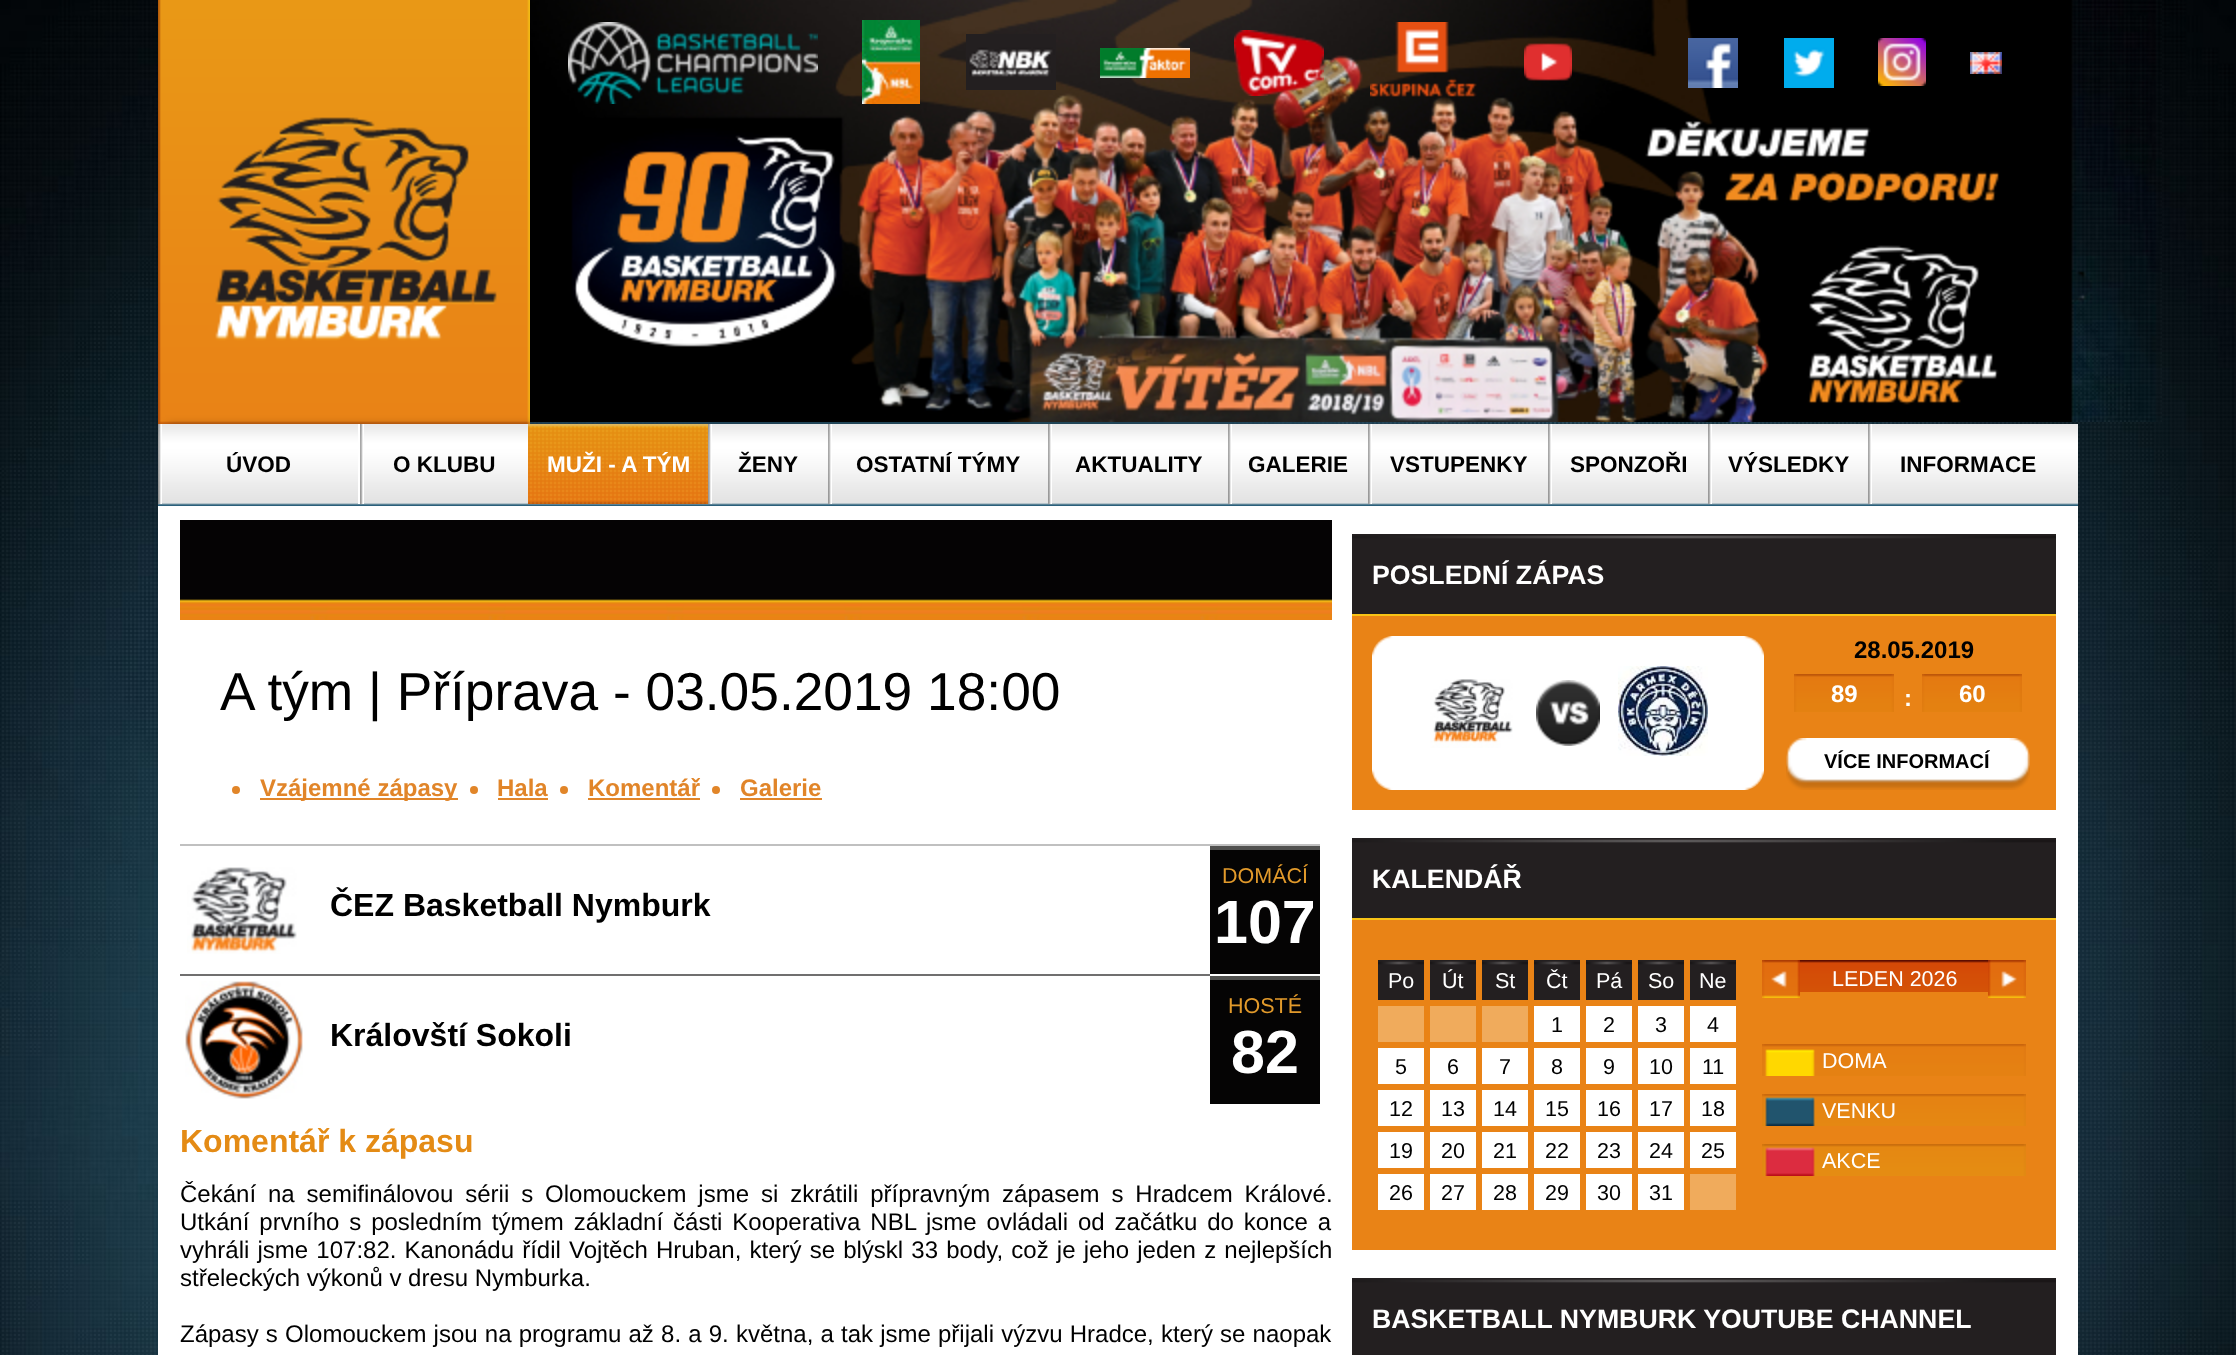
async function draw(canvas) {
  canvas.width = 2236;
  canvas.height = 1355;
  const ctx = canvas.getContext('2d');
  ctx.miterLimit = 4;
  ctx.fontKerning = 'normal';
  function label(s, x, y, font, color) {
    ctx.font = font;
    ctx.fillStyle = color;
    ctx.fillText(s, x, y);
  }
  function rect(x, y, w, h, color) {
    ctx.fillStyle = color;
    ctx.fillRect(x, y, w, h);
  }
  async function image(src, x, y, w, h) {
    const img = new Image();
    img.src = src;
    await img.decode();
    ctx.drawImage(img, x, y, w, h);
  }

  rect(0, 0, 2236, 1355, '#fff');
  await image('assets/img1.png', 0, 0, 2236, 1355);
  await image('assets/img2.png', 530, 0, 1632, 422);
  await image('assets/img3.png', 158, 0, 372, 424);
  await image('assets/img4.png', 568, 22, 250, 82);
  await image('assets/img5.png', 862, 20, 58, 84);
  await image('assets/img6.png', 966, 34, 90, 56);
  await image('assets/img7.png', 1100, 48, 90, 30);
  await image('assets/img8.png', 1234, 30, 90, 66);
  await image('assets/img9.png', 1370, 22, 107, 75);
  await image('assets/img10.png', 1524, 43, 48, 38);
  await image('assets/img11.png', 1688, 38, 50, 50);
  await image('assets/img12.png', 1784, 38, 50, 50);
  await image('assets/img13.png', 1878, 38, 48, 48);
  await image('assets/img14.png', 1970, 52, 32, 22);
  rect(158, 506, 1920, 849, '#fff');
  await image('assets/img15.png', 158, 424, 1920, 82);
  await image('assets/img16.png', 158, 424, 4, 80);
  rect(358, 424, 2, 80, '#fff');
  label('ÚVOD', 226, 472, 'bold 22.5px Liberation Sans', '#000');
  await image('assets/img16.png', 360, 424, 4, 80);
  label('O KLUBU', 393, 472, 'bold 22.5px Liberation Sans', '#000');
  await image('assets/img17.png', 528, 424, 180, 80);
  label('MUŽI - A TÝM', 547, 472, 'bold 22.5px Liberation Sans', '#fff');
  await image('assets/img16.png', 708, 424, 4, 80);
  label('ŽENY', 738, 472, 'bold 22.5px Liberation Sans', '#000');
  await image('assets/img16.png', 828, 424, 4, 80);
  label('OSTATNÍ TÝMY', 856, 472, 'bold 22.5px Liberation Sans', '#000');
  await image('assets/img16.png', 1048, 424, 4, 80);
  label('AKTUALITY', 1075, 472, 'bold 22.5px Liberation Sans', '#000');
  await image('assets/img16.png', 1228, 424, 4, 80);
  label('GALERIE', 1248, 472, 'bold 22.5px Liberation Sans', '#000');
  await image('assets/img16.png', 1368, 424, 4, 80);
  label('VSTUPENKY', 1390, 472, 'bold 22.5px Liberation Sans', '#000');
  await image('assets/img16.png', 1548, 424, 4, 80);
  label('SPONZOŘI', 1570, 472, 'bold 22.5px Liberation Sans', '#000');
  await image('assets/img16.png', 1708, 424, 4, 80);
  label('VÝSLEDKY', 1728, 472, 'bold 22.5px Liberation Sans', '#000');
  await image('assets/img16.png', 1868, 424, 4, 80);
  label('INFORMACE', 1900, 472, 'bold 22.5px Liberation Sans', '#000');
  await image('assets/img18.png', 180, 520, 1152, 100);
  label('A tým | Příprava - 03.05.2019 18:00', 220, 710, '53.3px Liberation Sans', '#000');
  ctx.fillStyle = '#e18529';
  ctx.beginPath();
  ctx.arc(236, 790, 4, 0, 2 * Math.PI);
  ctx.fill();
  rect(260, 798, 198, 2, '#e18529');
  label('Vzájemné zápasy', 260, 796, 'bold 24px Liberation Sans', '#e18529');
  ctx.beginPath();
  ctx.arc(474, 790, 4, 0, 2 * Math.PI);
  ctx.fill();
  label('Hala', 497, 796, 'bold 24px Liberation Sans', '#e18529');
  rect(498, 798, 50, 2, '#e18529');
  ctx.beginPath();
  ctx.arc(564, 790, 4, 0, 2 * Math.PI);
  ctx.fill();
  label('Komentář', 588, 796, 'bold 24px Liberation Sans', '#e18529');
  rect(588, 798, 112, 2, '#e18529');
  ctx.beginPath();
  ctx.arc(716, 790, 4, 0, 2 * Math.PI);
  ctx.fill();
  label('Galerie', 740, 796, 'bold 24px Liberation Sans', '#e18529');
  rect(740, 798, 82, 2, '#e18529');
  rect(180, 844, 1140, 2, '#c0c0c0');
  await image('assets/img19.png', 187, 867, 110, 87);
  label('ČEZ Basketball Nymburk', 330, 916, 'bold 32px Liberation Sans', '#000');
  rect(1210, 850, 110, 124, '#050404');
  rect(1210, 846, 110, 4, '#51514f');
  label('DOMÁCÍ', 1222, 883, '21.5px Liberation Sans', '#e29a2b');
  label('107', 1214, 943, 'bold 61px Liberation Sans', '#fff');
  rect(180, 974, 1030, 2, '#706f6f');
  await image('assets/img20.png', 185, 981, 118, 118);
  label('Královští Sokoli', 330, 1046, 'bold 32px Liberation Sans', '#000');
  rect(1210, 980, 110, 124, '#050404');
  rect(1210, 976, 110, 4, '#51514f');
  label('HOSTÉ', 1228, 1013, '21.5px Liberation Sans', '#e29a2b');
  label('82', 1231, 1073, 'bold 61px Liberation Sans', '#fff');
  label('Komentář k zápasu', 180, 1152, 'bold 32px Liberation Sans', '#e48b15');
  ctx.wordSpacing = '5.25px';
  label('Čekání na semifinálovou sérii s Olomouckem jsme si zkrátili přípravným zápasem s Hradcem Králové.', 180, 1202, '24px Liberation Sans', '#000');
  ctx.wordSpacing = '3.25px';
  label('Utkání prvního s posledním týmem základní části Kooperativa NBL jsme ovládali od začátku do konce a', 180, 1230, '24px Liberation Sans', '#000');
  ctx.wordSpacing = '1.5px';
  label('vyhráli jsme 107:82. Kanonádu řídil Vojtěch Hruban, který se blýskl 33 body, což je jeho jeden z nejlepších', 180, 1258, '24px Liberation Sans', '#000');
  ctx.wordSpacing = '0px';
  label('střeleckých výkonů v dresu Nymburka.', 180, 1286, '24px Liberation Sans', '#000');
  ctx.wordSpacing = '0.5px';
  label('Zápasy s Olomouckem jsou na programu až 8. a 9. května, a tak jsme přijali výzvu Hradce, který se naopak', 180, 1342, '24px Liberation Sans', '#000');
  await image('assets/img21.png', 1352, 534, 704, 80);
  ctx.wordSpacing = '0px';
  label('POSLEDNÍ ZÁPAS', 1372, 584, 'bold 26.7px Liberation Sans', '#fff');
  rect(1352, 616, 704, 194, '#e98316');
  rect(1352, 614, 704, 2, '#f8c316');
  await image('assets/img22.png', 1372, 636, 392, 154);
  await image('assets/img23.png', 1430, 679, 83, 69);
  await image('assets/img24.png', 1536, 680, 64, 66);
  await image('assets/img25.png', 1618, 666, 90, 90);
  label('28.05.2019', 1854, 658, 'bold 24px Liberation Sans', '#000');
  await image('assets/img26.png', 1794, 674, 100, 38);
  label('89', 1831, 702, 'bold 24px Liberation Sans', '#fff');
  label(':', 1904, 706, 'bold 24px Liberation Sans', '#fff');
  await image('assets/img26.png', 1922, 674, 100, 38);
  label('60', 1959, 702, 'bold 24px Liberation Sans', '#fff');
  await image('assets/img27.png', 1786, 738, 244, 52);
  label('VÍCE INFORMACÍ', 1824, 768, 'bold 20px Liberation Sans', '#000');
  await image('assets/img21.png', 1352, 838, 704, 80);
  label('KALENDÁŘ', 1372, 888, 'bold 26.7px Liberation Sans', '#fff');
  rect(1352, 920, 704, 330, '#e98316');
  rect(1352, 918, 704, 2, '#f8c316');
  await image('assets/img28.png', 1378, 960, 46, 40);
  label('Po', 1388, 988, '21.5px Liberation Sans', '#fff');
  await image('assets/img28.png', 1430, 960, 46, 40);
  label('Út', 1442, 988, '21.5px Liberation Sans', '#fff');
  await image('assets/img28.png', 1482, 960, 46, 40);
  label('St', 1495, 988, '21.5px Liberation Sans', '#fff');
  await image('assets/img28.png', 1534, 960, 46, 40);
  label('Čt', 1546, 988, '21.5px Liberation Sans', '#fff');
  await image('assets/img28.png', 1586, 960, 46, 40);
  label('Pá', 1596, 988, '21.5px Liberation Sans', '#fff');
  await image('assets/img28.png', 1638, 960, 46, 40);
  label('So', 1648, 988, '21.5px Liberation Sans', '#fff');
  await image('assets/img28.png', 1690, 960, 46, 40);
  label('Ne', 1699, 988, '21.5px Liberation Sans', '#fff');
  rect(1378, 1006, 46, 36, '#f0ab5c');
  rect(1430, 1006, 46, 36, '#f0ab5c');
  rect(1482, 1006, 46, 36, '#f0ab5c');
  rect(1534, 1006, 46, 36, '#fff');
  label('1', 1551, 1032, '21.5px Liberation Sans', '#000');
  rect(1586, 1006, 46, 36, '#fff');
  label('2', 1603, 1032, '21.5px Liberation Sans', '#000');
  rect(1638, 1006, 46, 36, '#fff');
  label('3', 1655, 1032, '21.5px Liberation Sans', '#000');
  rect(1690, 1006, 46, 36, '#fff');
  label('4', 1707, 1032, '21.5px Liberation Sans', '#000');
  rect(1378, 1048, 46, 36, '#fff');
  label('5', 1395, 1074, '21.5px Liberation Sans', '#000');
  rect(1430, 1048, 46, 36, '#fff');
  label('6', 1447, 1074, '21.5px Liberation Sans', '#000');
  rect(1482, 1048, 46, 36, '#fff');
  label('7', 1499, 1074, '21.5px Liberation Sans', '#000');
  rect(1534, 1048, 46, 36, '#fff');
  label('8', 1551, 1074, '21.5px Liberation Sans', '#000');
  rect(1586, 1048, 46, 36, '#fff');
  label('9', 1603, 1074, '21.5px Liberation Sans', '#000');
  rect(1638, 1048, 46, 36, '#fff');
  label('10', 1649, 1074, '21.5px Liberation Sans', '#000');
  rect(1690, 1048, 46, 36, '#fff');
  label('11', 1702, 1074, '21.5px Liberation Sans', '#000');
  rect(1378, 1090, 46, 36, '#fff');
  label('12', 1389, 1116, '21.5px Liberation Sans', '#000');
  rect(1430, 1090, 46, 36, '#fff');
  label('13', 1441, 1116, '21.5px Liberation Sans', '#000');
  rect(1482, 1090, 46, 36, '#fff');
  label('14', 1493, 1116, '21.5px Liberation Sans', '#000');
  rect(1534, 1090, 46, 36, '#fff');
  label('15', 1545, 1116, '21.5px Liberation Sans', '#000');
  rect(1586, 1090, 46, 36, '#fff');
  label('16', 1597, 1116, '21.5px Liberation Sans', '#000');
  rect(1638, 1090, 46, 36, '#fff');
  label('17', 1649, 1116, '21.5px Liberation Sans', '#000');
  rect(1690, 1090, 46, 36, '#fff');
  label('18', 1701, 1116, '21.5px Liberation Sans', '#000');
  rect(1378, 1132, 46, 36, '#fff');
  label('19', 1389, 1158, '21.5px Liberation Sans', '#000');
  rect(1430, 1132, 46, 36, '#fff');
  label('20', 1441, 1158, '21.5px Liberation Sans', '#000');
  rect(1482, 1132, 46, 36, '#fff');
  label('21', 1493, 1158, '21.5px Liberation Sans', '#000');
  rect(1534, 1132, 46, 36, '#fff');
  label('22', 1545, 1158, '21.5px Liberation Sans', '#000');
  rect(1586, 1132, 46, 36, '#fff');
  label('23', 1597, 1158, '21.5px Liberation Sans', '#000');
  rect(1638, 1132, 46, 36, '#fff');
  label('24', 1649, 1158, '21.5px Liberation Sans', '#000');
  rect(1690, 1132, 46, 36, '#fff');
  label('25', 1701, 1158, '21.5px Liberation Sans', '#000');
  rect(1378, 1174, 46, 36, '#fff');
  label('26', 1389, 1200, '21.5px Liberation Sans', '#000');
  rect(1430, 1174, 46, 36, '#fff');
  label('27', 1441, 1200, '21.5px Liberation Sans', '#000');
  rect(1482, 1174, 46, 36, '#fff');
  label('28', 1493, 1200, '21.5px Liberation Sans', '#000');
  rect(1534, 1174, 46, 36, '#fff');
  label('29', 1545, 1200, '21.5px Liberation Sans', '#000');
  rect(1586, 1174, 46, 36, '#fff');
  label('30', 1597, 1200, '21.5px Liberation Sans', '#000');
  rect(1638, 1174, 46, 36, '#fff');
  label('31', 1649, 1200, '21.5px Liberation Sans', '#000');
  rect(1690, 1174, 46, 36, '#f0ab5c');
  await image('assets/img29.png', 1762, 960, 38, 38);
  await image('assets/img30.png', 1800, 960, 188, 32);
  label('LEDEN 2026', 1832, 986, '21.5px Liberation Sans', '#fff');
  await image('assets/img31.png', 1988, 960, 38, 38);
  await image('assets/img32.png', 1762, 1044, 264, 32);
  label('DOMA', 1822, 1068, '21.5px Liberation Sans', '#fff');
  await image('assets/img33.png', 1762, 1094, 264, 32);
  label('VENKU', 1822, 1118, '21.5px Liberation Sans', '#fff');
  await image('assets/img34.png', 1762, 1144, 264, 32);
  label('AKCE', 1822, 1168, '21.5px Liberation Sans', '#fff');
  await image('assets/img35.png', 1352, 1278, 704, 77);
  label('BASKETBALL NYMBURK YOUTUBE CHANNEL', 1372, 1328, 'bold 26.7px Liberation Sans', '#fff');
}

draw(document.querySelector('canvas'));
